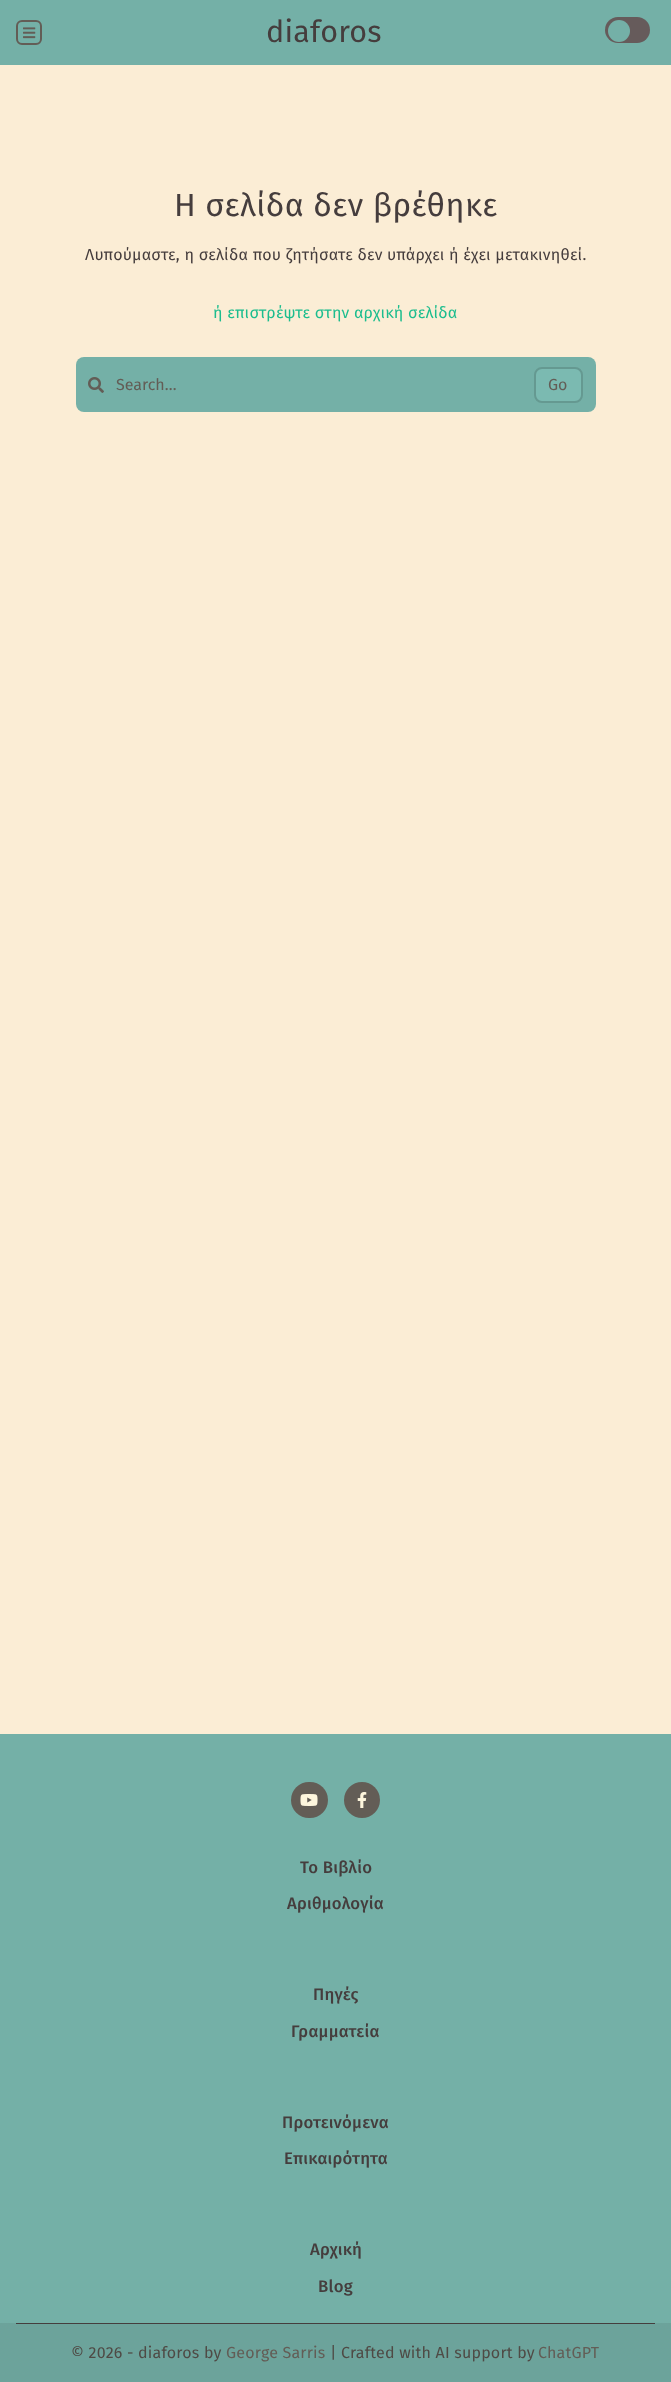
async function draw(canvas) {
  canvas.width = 671;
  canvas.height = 2382;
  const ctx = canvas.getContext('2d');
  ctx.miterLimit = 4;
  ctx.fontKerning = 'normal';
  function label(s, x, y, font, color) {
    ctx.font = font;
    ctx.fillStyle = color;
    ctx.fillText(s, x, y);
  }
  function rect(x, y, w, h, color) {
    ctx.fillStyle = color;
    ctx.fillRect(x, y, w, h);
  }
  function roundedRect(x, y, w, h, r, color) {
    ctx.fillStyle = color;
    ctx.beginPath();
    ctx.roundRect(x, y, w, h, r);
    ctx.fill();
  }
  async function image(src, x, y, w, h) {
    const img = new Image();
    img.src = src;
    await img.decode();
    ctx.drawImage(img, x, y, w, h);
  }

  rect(0, 0, 671, 2382, '#fbedd5');
  rect(0, 0, 671, 65, '#74b0a7');
  ctx.beginPath();
  ctx.roundRect(17, 21, 24, 23, 5);
  ctx.strokeStyle = '#635d56';
  ctx.lineWidth = 2;
  ctx.stroke();
  await image('assets/img1.png', 23, 27, 13, 12);
  ctx.letterSpacing = '0.2px';
  label('diaforos', 266, 42, '30.5px Fira Sans', '#453d3d');
  roundedRect(605, 17, 45, 26, 13, '#665b5b');
  ctx.fillStyle = '#74b0a7';
  ctx.beginPath();
  ctx.arc(619, 31, 11, 0, 2 * Math.PI);
  ctx.fill();
  ctx.letterSpacing = '0.5px';
  label('Η σελίδα δεν βρέθηκε', 174, 216, '32px Fira Sans', '#453d3d');
  ctx.letterSpacing = '0.25px';
  label('Λυπούμαστε, η σελίδα που ζητήσατε δεν υπάρχει ή έχει μετακινηθεί.', 85, 260, '16px Fira Sans', '#453d3d');
  label('ή επιστρέψτε στην αρχική σελίδα', 213, 318, '16px Fira Sans', '#1cbd8e');
  roundedRect(76, 357, 520, 55, 8, '#74b0a7');
  await image('assets/img2.png', 88, 377, 16, 16);
  ctx.letterSpacing = '0px';
  label('Search…', 116, 390, '16px Fira Sans', '#635d56');
  ctx.fillStyle = '#7bbab1';
  ctx.beginPath();
  ctx.roundRect(535, 368, 47, 34, 7);
  ctx.fill();
  ctx.strokeStyle = '#659991';
  ctx.stroke();
  label('Go', 548, 390, '16px Fira Sans', '#635d56');
  rect(0, 2323, 671, 59, '#6ca39b');
  rect(0, 1734, 671, 589, '#74b0a7');
  roundedRect(291, 1782, 37, 36, 18, '#635d56');
  await image('assets/img3.png', 300, 1794, 18, 12);
  ctx.beginPath();
  ctx.arc(362, 1800, 18, 0, 2 * Math.PI);
  ctx.fill();
  await image('assets/img4.png', 357, 1792, 10, 16);
  ctx.letterSpacing = '0.25px';
  label('Το Βιβλίο', 300, 1873, '500 16.75px Fira Sans', '#453d3d');
  label('Αριθμολογία', 287, 1909, '500 16.75px Fira Sans', '#453d3d');
  label('Πηγές', 313, 2000, '500 16.75px Fira Sans', '#453d3d');
  label('Γραμματεία', 291, 2037, '500 16.75px Fira Sans', '#453d3d');
  label('Προτεινόμενα', 282, 2128, '500 16.75px Fira Sans', '#453d3d');
  label('Επικαιρότητα', 284, 2164, '500 16.75px Fira Sans', '#453d3d');
  label('Αρχική', 310, 2255, '500 16.75px Fira Sans', '#453d3d');
  label('Blog', 318, 2292, '500 16.75px Fira Sans', '#453d3d');
  rect(16, 2323, 639, 1, '#453d3d');
  ctx.letterSpacing = '0.2px';
  label('© 2026 - diaforos by', 71, 2358, '16px Fira Sans', '#4f4a45');
  label('George Sarris', 226, 2358, '16px Fira Sans', '#635d56');
  label('| Crafted with AI support by', 330, 2358, '16px Fira Sans', '#4f4a45');
  label('ChatGPT', 538, 2358, '16px Fira Sans', '#635d56');
}

draw(document.querySelector('canvas'));
